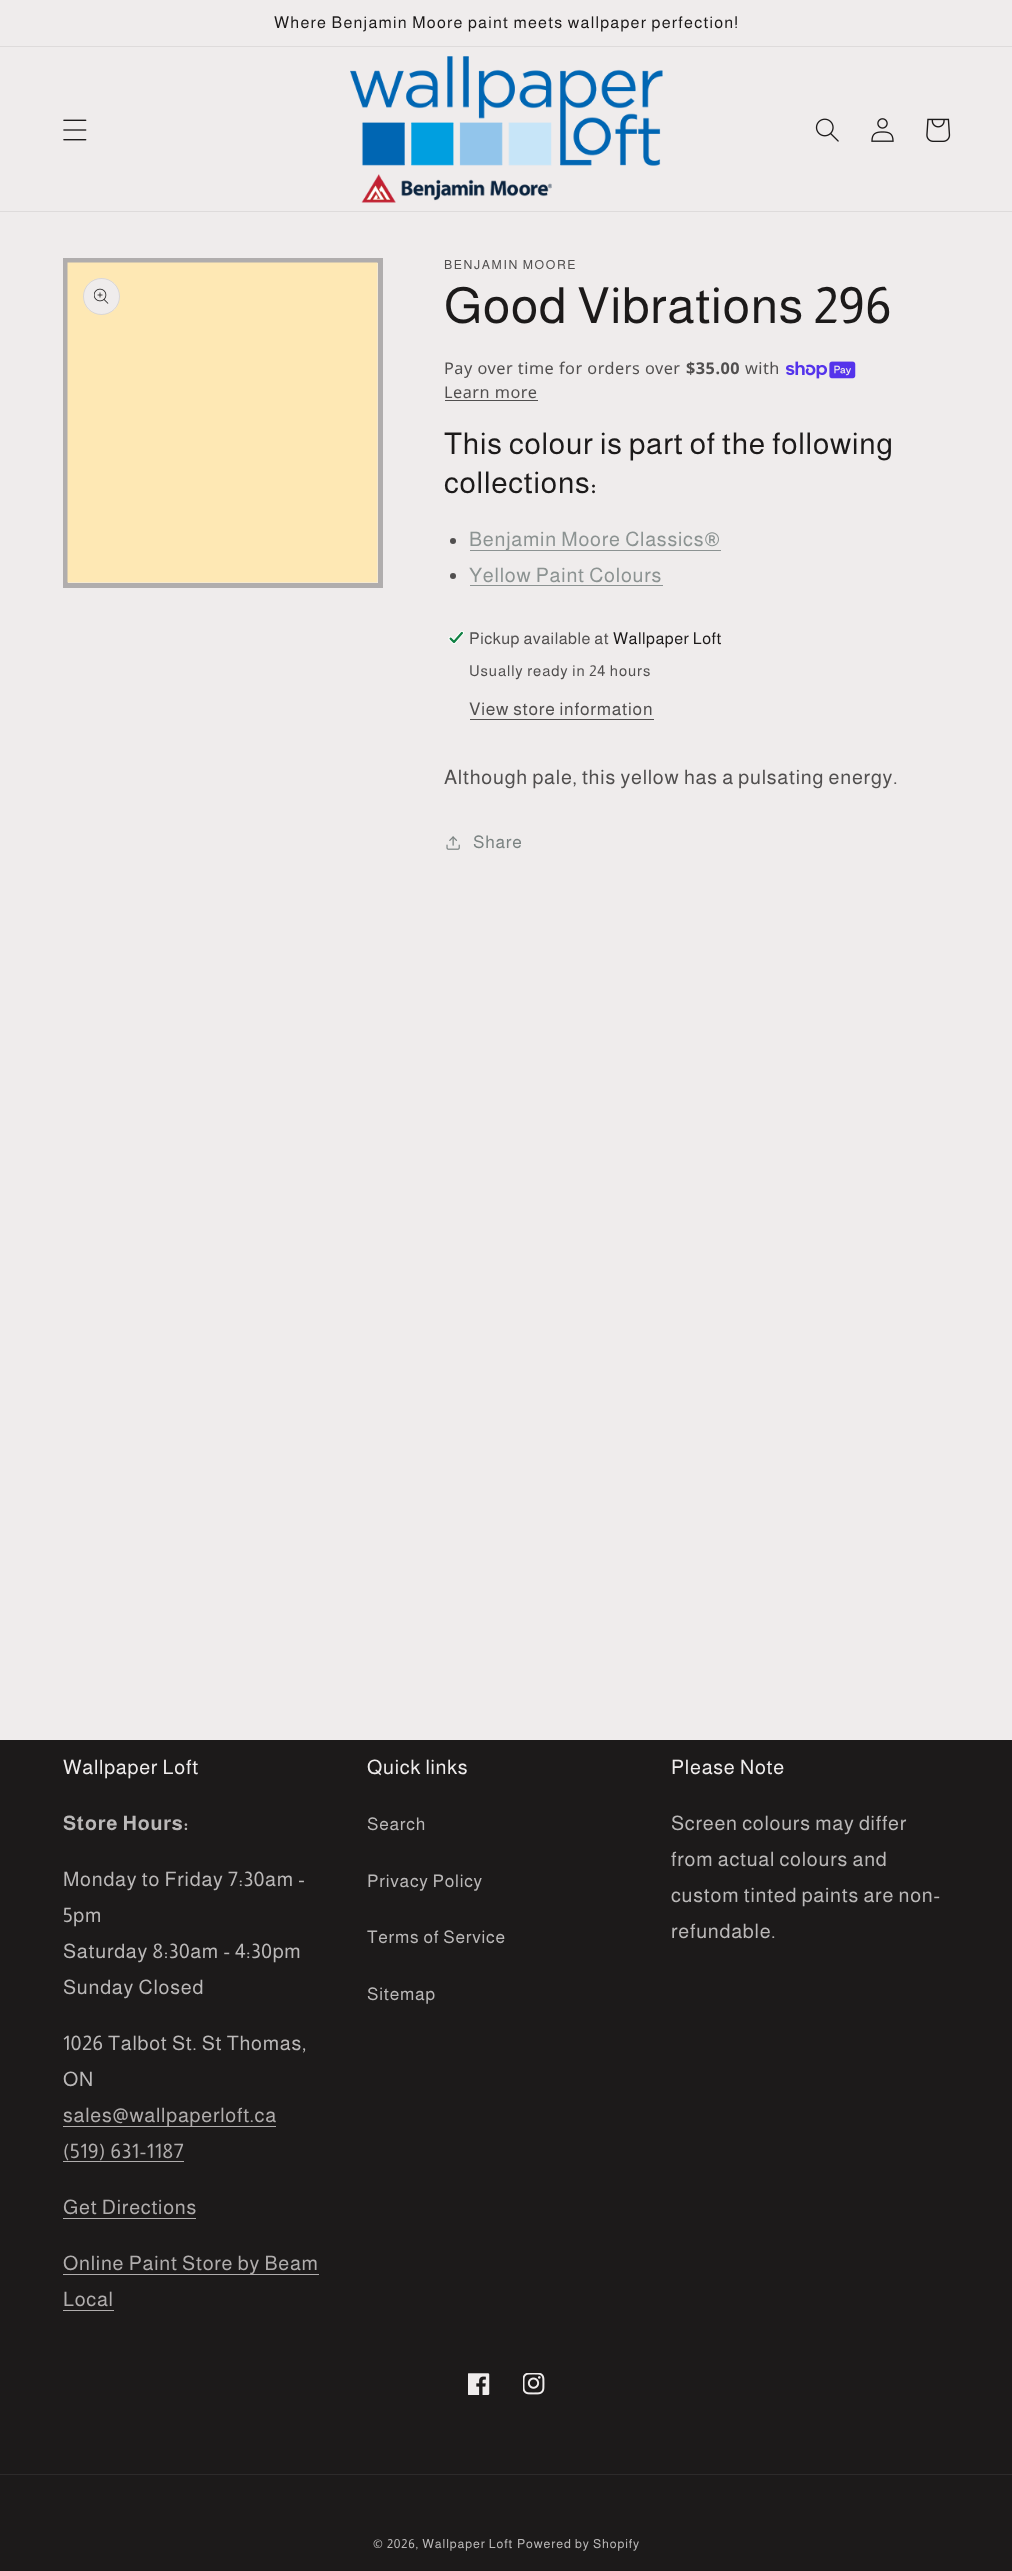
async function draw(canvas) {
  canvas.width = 1012;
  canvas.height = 2571;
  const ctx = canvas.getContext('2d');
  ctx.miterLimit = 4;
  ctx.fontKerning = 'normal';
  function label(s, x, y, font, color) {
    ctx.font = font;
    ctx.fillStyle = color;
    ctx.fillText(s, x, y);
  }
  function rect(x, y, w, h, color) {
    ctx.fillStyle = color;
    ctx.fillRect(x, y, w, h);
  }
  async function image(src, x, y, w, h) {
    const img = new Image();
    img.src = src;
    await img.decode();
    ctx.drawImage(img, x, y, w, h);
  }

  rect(0, 0, 1012, 2571, '#efecec');
  rect(0, 46, 1012, 1, '#dedbdb');
  ctx.letterSpacing = '1.25px';
  label('Where Benjamin Moore paint meets wallpaper perfection!', 274, 28, '16.25px Almarai', '#1c1a1a');
  rect(0, 211, 1012, 1, '#dedbdb');
  await image('assets/img1.png', 63, 119, 24, 22);
  await image('assets/img2.png', 350, 56, 313, 147);
  await image('assets/img3.png', 815, 118, 24, 24);
  await image('assets/img4.png', 871, 118, 23, 24);
  await image('assets/img5.png', 926, 118, 25, 24);
  ctx.strokeStyle = '#b0adad';
  ctx.lineWidth = 5;
  ctx.strokeRect(65.5, 260.5, 315, 325);
  await image('assets/img6.png', 67, 262, 311, 321);
  ctx.fillStyle = '#efecec';
  ctx.beginPath();
  ctx.arc(101.5, 296.5, 18.5, 0, 2 * Math.PI);
  ctx.fill();
  ctx.beginPath();
  ctx.arc(101.5, 296.5, 18, 0, 2 * Math.PI);
  ctx.strokeStyle = '#1c1a1a1a';
  ctx.lineWidth = 1;
  ctx.stroke();
  await image('assets/img7.png', 94, 288, 15, 16);
  ctx.letterSpacing = '1.6px';
  label('BENJAMIN MOORE', 444, 269, '12.5px Almarai', '#514f4f');
  ctx.letterSpacing = '0.75px';
  label('Good Vibrations 296', 444, 323, '50px Almarai', '#1c1a1a');
  ctx.letterSpacing = '0.5px';
  label('Pay over time for orders over', 444, 374, '16.25px Noto Sans', '#514f4f');
  label('$35.00', 686, 374, 'bold 16.25px Noto Sans', '#514f4f');
  label('with', 745, 374, '16.25px Noto Sans', '#514f4f');
  await image('assets/img8.png', 786, 361, 70, 18);
  label('Learn more', 444, 398, '16.25px Noto Sans', '#514f4f');
  rect(445, 400, 93, 1, '#514f4f');
  ctx.letterSpacing = '0.75px';
  label('This colour is part of the following', 444, 454, '30px Almarai', '#1c1a1a');
  label('collections:', 444, 493, '30px Almarai', '#1c1a1a');
  ctx.fillStyle = '#514f4f';
  ctx.beginPath();
  ctx.arc(453, 541, 3, 0, 2 * Math.PI);
  ctx.fill();
  rect(470, 550, 251, 1, '#8c9392');
  label('Benjamin Moore Classics®', 469, 546, '20px Almarai', '#8c9392');
  ctx.fillStyle = '#514f4f';
  ctx.beginPath();
  ctx.arc(453, 576, 3, 0, 2 * Math.PI);
  ctx.fill();
  label('Yellow Paint Colours', 469, 582, '20px Almarai', '#8c9392');
  rect(470, 585, 193, 1, '#8c9392');
  await image('assets/img9.png', 448, 631, 16, 13);
  ctx.letterSpacing = '0.5px';
  label('Pickup available at', 469, 644, '16.25px Almarai', '#514f4f');
  label('Wallpaper Loft', 613, 644, '16.25px Almarai', '#1c1a1a');
  ctx.letterSpacing = '0.9px';
  label('Usually ready in 24 hours', 469, 676, '15px Almarai', '#514f4f');
  ctx.letterSpacing = '0.75px';
  label('View store information', 469, 715, '17.5px Almarai', '#514f4f');
  rect(470, 719, 184, 1, '#514f4f');
  label('Although pale, this yellow has a pulsating energy.', 444, 784, '20px Almarai', '#514f4f');
  await image('assets/img10.png', 446, 836, 14, 14);
  label('Share', 473, 848, '17.5px Almarai', '#7b8382');
  rect(0, 1740, 1012, 831, '#1c1a1a');
  label('Wallpaper Loft', 63, 1774, '20px Almarai', '#efecec');
  label('Store Hours:', 63, 1830, 'bold 20px Almarai', '#bab8b8');
  label('Monday to Friday 7:30am -', 63, 1886, '20px Almarai', '#bab8b8');
  label('5pm', 63, 1922, '20px Almarai', '#bab8b8');
  label('Saturday 8:30am - 4:30pm', 63, 1958, '20px Almarai', '#bab8b8');
  label('Sunday Closed', 63, 1994, '20px Almarai', '#bab8b8');
  label('1026 Talbot St. St Thomas,', 63, 2050, '20px Almarai', '#bab8b8');
  label('ON', 63, 2086, '20px Almarai', '#bab8b8');
  rect(63, 2126, 213, 1, '#b0adad');
  label('sales@wallpaperloft.ca', 63, 2122, '20px Almarai', '#b0adad');
  label('(519) 631-1187', 63, 2158, '20px Almarai', '#b0adad');
  rect(63, 2161, 121, 1, '#b0adad');
  label('Get Directions', 63, 2214, '20px Almarai', '#b0adad');
  rect(63, 2218, 133, 1, '#b0adad');
  rect(63, 2274, 256, 1, '#b0adad');
  label('Online Paint Store by Beam', 63, 2270, '20px Almarai', '#b0adad');
  label('Local', 63, 2306, '20px Almarai', '#b0adad');
  rect(63, 2310, 51, 1, '#b0adad');
  label('Quick links', 367, 1774, '20px Almarai', '#efecec');
  label('Search', 367, 1830, '17.5px Almarai', '#bab8b8');
  label('Privacy Policy', 367, 1887, '17.5px Almarai', '#bab8b8');
  label('Terms of Service', 367, 1943, '17.5px Almarai', '#bab8b8');
  label('Sitemap', 367, 2000, '17.5px Almarai', '#bab8b8');
  label('Please Note', 671, 1774, '20px Almarai', '#efecec');
  label('Screen colours may differ', 671, 1830, '20px Almarai', '#bab8b8');
  label('from actual colours and', 671, 1866, '20px Almarai', '#bab8b8');
  label('custom tinted paints are non-', 671, 1902, '20px Almarai', '#bab8b8');
  label('refundable.', 671, 1938, '20px Almarai', '#bab8b8');
  await image('assets/img11.png', 468, 2373, 22, 22);
  await image('assets/img12.png', 523, 2373, 22, 22);
  rect(0, 2474, 1012, 1, '#2d2b2b');
  ctx.letterSpacing = '0.9px';
  label('© 2026, Wallpaper Loft', 373, 2548, '12.5px Almarai', '#bab8b8');
  label('Powered by Shopify', 517, 2548, '12.5px Almarai', '#bab8b8');
}

draw(document.querySelector('canvas'));
